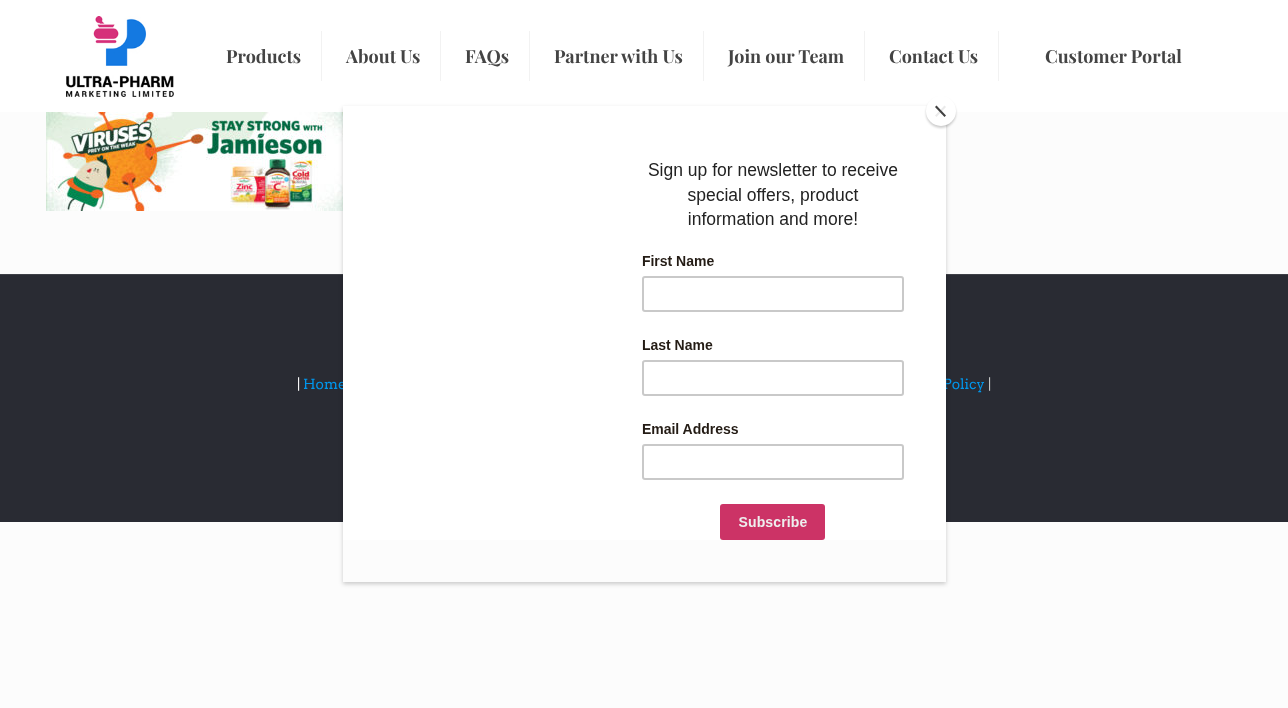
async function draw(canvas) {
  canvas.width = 1288;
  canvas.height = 708;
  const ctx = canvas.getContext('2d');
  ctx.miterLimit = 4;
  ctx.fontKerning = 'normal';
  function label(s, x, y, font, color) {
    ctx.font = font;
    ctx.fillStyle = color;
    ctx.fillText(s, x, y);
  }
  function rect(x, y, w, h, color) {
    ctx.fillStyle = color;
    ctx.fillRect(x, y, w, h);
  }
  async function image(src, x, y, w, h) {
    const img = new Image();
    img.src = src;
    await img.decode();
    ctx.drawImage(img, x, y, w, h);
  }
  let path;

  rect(0, 0, 1288, 708, '#fcfcfc');
  rect(0, 0, 1288, 112, '#fff');
  await image('assets/img1.png', 66, 16, 108, 81);
  rect(321, 31, 1, 50, '#f2f2f2');
  label('Products', 226, 63, 'bold 18px Playfair Display', '#444');
  rect(440, 31, 1, 50, '#f2f2f2');
  label('About Us', 346, 63, 'bold 18px Playfair Display', '#444');
  rect(529, 31, 1, 50, '#f2f2f2');
  label('FAQs', 465, 63, 'bold 18px Playfair Display', '#444');
  rect(703, 31, 1, 50, '#f2f2f2');
  label('Partner with Us', 554, 63, 'bold 18px Playfair Display', '#444');
  rect(864, 31, 1, 50, '#f2f2f2');
  label('Join our Team', 728, 63, 'bold 18px Playfair Display', '#444');
  rect(998, 31, 1, 50, '#f2f2f2');
  label('Contact Us', 889, 63, 'bold 18px Playfair Display', '#444');
  label('Customer Portal', 1045, 63, 'bold 18px Playfair Display', '#444');
  await image('assets/img2.png', 46, 112, 297, 99);
  rect(0, 275, 1288, 247, '#292b33');
  rect(0, 274, 1288, 1, '#3e4047');
  label('|', 297, 389, '14px Arvo', '#fff');
  label('Home', 303, 389, '14px Arvo', '#0095eb');
  label('Policy', 943, 389, '14px Arvo', '#0095eb');
  label('|', 988, 389, '14px Arvo', '#ccc');
  ctx.save();
  path = new Path2D('M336 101H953V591H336ZM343 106H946V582H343Z');
  ctx.clip(path, 'evenodd');
  ctx.fillStyle = '#00000033';
  ctx.filter = 'blur(2px)';
  ctx.beginPath();
  ctx.rect(343, 108, 603, 476);
  ctx.fill();
  ctx.filter = 'none';
  ctx.restore();
  await image('assets/img3.png', 343, 112, 603, 428);
  ctx.fillStyle = '#00000033';
  ctx.filter = 'blur(1px)';
  ctx.beginPath();
  ctx.roundRect(926, 98, 30, 30, 15);
  ctx.fill();
  ctx.filter = 'none';
  ctx.fillStyle = '#fff';
  ctx.beginPath();
  ctx.arc(941, 111, 15, 0, 2 * Math.PI);
  ctx.fill();
  ctx.fillStyle = '#eaeaea';
  path = new Path2D('M944.5 105.5L946 107L936.5 117L935 115.5Z');
  ctx.fill(path);
  ctx.fillStyle = '#414141';
  path = new Path2D('M935 107L936.5 105.5L946 115.5L944.5 117Z');
  ctx.fill(path);
}

draw(document.querySelector('canvas'));
